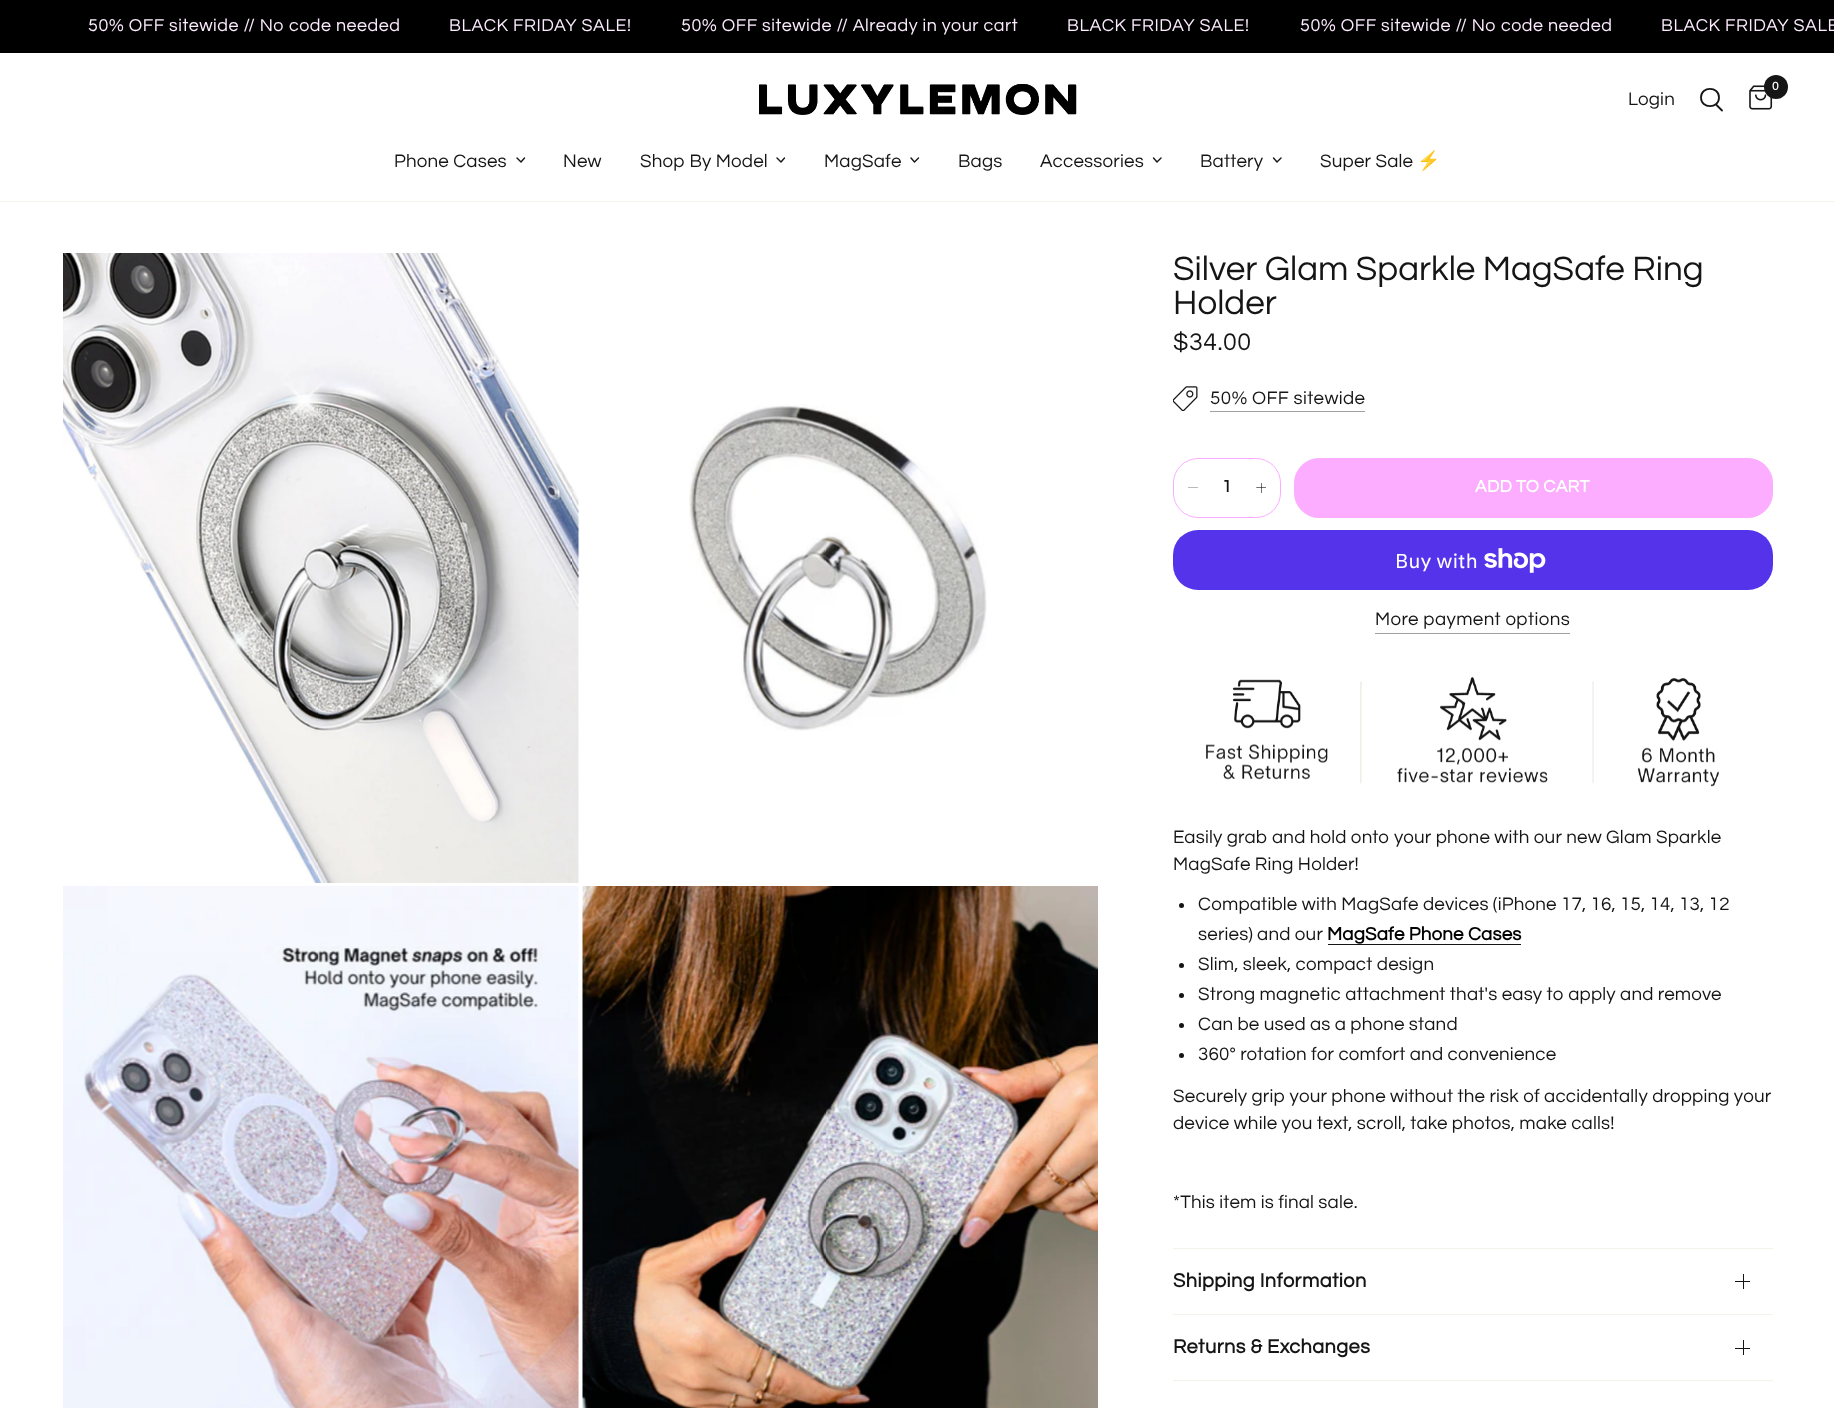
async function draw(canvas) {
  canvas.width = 1834;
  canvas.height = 1408;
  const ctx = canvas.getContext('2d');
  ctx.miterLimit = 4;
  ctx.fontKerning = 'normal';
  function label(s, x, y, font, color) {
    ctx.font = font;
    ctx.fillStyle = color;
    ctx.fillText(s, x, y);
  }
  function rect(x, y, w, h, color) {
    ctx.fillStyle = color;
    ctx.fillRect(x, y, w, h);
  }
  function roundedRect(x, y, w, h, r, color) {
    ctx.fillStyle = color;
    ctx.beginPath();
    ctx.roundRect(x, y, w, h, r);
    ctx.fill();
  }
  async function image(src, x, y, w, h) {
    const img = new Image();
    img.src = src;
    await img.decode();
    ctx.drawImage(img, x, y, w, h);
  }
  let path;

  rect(0, 0, 1834, 1408, '#fff');
  rect(0, 0, 1834, 53, '#000');
  ctx.letterSpacing = '0.55px';
  label('50% OFF sitewide // No code needed', 88, 31, '17.9px Questrial', '#fdecff');
  label('BLACK FRIDAY SALE!', 449, 31, '17.9px Questrial', '#fdecff');
  label('50% OFF sitewide // Already in your cart', 681, 31, '17.9px Questrial', '#fdecff');
  label('BLACK FRIDAY SALE!', 1067, 31, '17.9px Questrial', '#fdecff');
  label('50% OFF sitewide // No code needed', 1300, 31, '17.9px Questrial', '#fdecff');
  label('BLACK FRIDAY SALE', 1661, 31, '17.9px Questrial', '#fdecff');
  rect(0, 201, 1834, 1, '#f5f1eb');
  await image('assets/img1.png', 759, 84, 318, 31);
  await image('assets/img2.png', 1749, 85, 24, 25);
  ctx.fillStyle = '#151515';
  ctx.beginPath();
  ctx.arc(1776, 87, 12, 0, 2 * Math.PI);
  ctx.fill();
  ctx.letterSpacing = '0.2px';
  label('0', 1772, 90, 'bold 12px Questrial', '#fff');
  label('Login', 1628, 105, '18.75px Questrial', '#151515');
  path = new Path2D('M1716 104.5L1722 110.5M1719 97.5C1719 109 1701 109 1701 97.5C1701 86 1719 86 1719 97.5Z');
  ctx.strokeStyle = '#151515';
  ctx.lineWidth = 1.8;
  ctx.lineCap = 'round';
  ctx.lineJoin = 'round';
  ctx.stroke(path);
  label('Phone Cases', 394, 167, '18.75px Questrial', '#151515');
  path = new Path2D('M524.5 158L521 162L517 158');
  ctx.lineWidth = 1.4;
  ctx.stroke(path);
  label('New', 563, 167, '18.75px Questrial', '#151515');
  label('Shop By Model', 640, 167, '18.75px Questrial', '#151515');
  path = new Path2D('M784.5 158L781 162L777 158');
  ctx.stroke(path);
  label('MagSafe', 824, 167, '18.75px Questrial', '#151515');
  path = new Path2D('M918.5 158L914.5 162L911 158');
  ctx.stroke(path);
  label('Bags', 958, 167, '18.75px Questrial', '#151515');
  label('Accessories', 1040, 167, '18.75px Questrial', '#151515');
  path = new Path2D('M1161 158L1157 162L1153.5 158');
  ctx.stroke(path);
  label('Battery', 1200, 167, '18.75px Questrial', '#151515');
  path = new Path2D('M1281 158L1277 162L1273.5 158');
  ctx.stroke(path);
  label('Super Sale', 1320, 167, '18.75px Questrial', '#151515');
  label('⚡️', 1417, 167, '18.75px Noto Color Emoji', '#151515');
  await image('assets/img3.png', 63, 253, 517, 630);
  await image('assets/img4.png', 689, 404, 298, 327);
  await image('assets/img5.png', 63, 886, 517, 522);
  await image('assets/img6.png', 582, 886, 516, 522);
  ctx.letterSpacing = '0px';
  label('Silver Glam Sparkle MagSafe Ring', 1173, 280, '35px Questrial', '#151515');
  label('Holder', 1173, 314, '35px Questrial', '#151515');
  ctx.letterSpacing = '0.5px';
  label('$34.00', 1173, 350, '25px Questrial', '#151515');
  await image('assets/img7.png', 1173, 386, 25, 25);
  ctx.letterSpacing = '0.4px';
  label('50% OFF sitewide', 1210, 404, '18.75px Questrial', '#151515');
  rect(1210, 411, 155, 1, '#a1a1a1');
  ctx.beginPath();
  ctx.roundRect(1173.5, 458.5, 107, 59, 24.5);
  ctx.strokeStyle = '#fcadff';
  ctx.lineWidth = 1;
  ctx.lineJoin = 'miter';
  ctx.stroke();
  rect(1188, 487, 10, 1, '#b9b9b9');
  ctx.letterSpacing = '0px';
  label('1', 1222, 492, 'bold 17.5px Questrial', '#151515');
  await image('assets/img8.png', 1256, 483, 10, 10);
  ctx.fillStyle = '#fcadff';
  ctx.beginPath();
  ctx.roundRect(1294.5, 458.5, 478, 59, 24.5);
  ctx.fill();
  ctx.stroke();
  ctx.letterSpacing = '0.3px';
  label('ADD TO CART', 1475, 492, 'bold 17.5px Questrial', '#fff');
  roundedRect(1173, 530, 600, 60, 25, '#5433eb');
  ctx.letterSpacing = '0.2px';
  label('Buy with', 1395, 568, '20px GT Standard', '#fff');
  await image('assets/img9.png', 1484, 548, 62, 25);
  ctx.letterSpacing = '0.4px';
  label('More payment options', 1375, 625, '18.75px Questrial', '#151515');
  rect(1375, 633, 195, 1, '#a1a1a1');
  await image('assets/img10.png', 1206, 677, 513, 110);
  ctx.letterSpacing = '0.2px';
  label('Easily grab and hold onto your phone with our new Glam Sparkle', 1173, 843, '18.75px Questrial', '#151515');
  label('MagSafe Ring Holder!', 1173, 870, '18.75px Questrial', '#151515');
  ctx.beginPath();
  ctx.arc(1181.5, 905.5, 2.5, 0, 2 * Math.PI);
  ctx.fill();
  label('Compatible with MagSafe devices (iPhone 17, 16, 15, 14, 13, 12', 1198, 910, '18.75px Questrial', '#151515');
  label('series) and our', 1198, 940, '18.75px Questrial', '#151515');
  label('MagSafe Phone Cases', 1327, 940, 'bold 18.75px Questrial', '#000');
  rect(1328, 944, 193, 1, '#151515');
  ctx.beginPath();
  ctx.arc(1181.5, 965.5, 2.5, 0, 2 * Math.PI);
  ctx.fill();
  label('Slim, sleek, compact design', 1198, 970, '18.75px Questrial', '#151515');
  ctx.beginPath();
  ctx.arc(1181.5, 995.5, 2.5, 0, 2 * Math.PI);
  ctx.fill();
  label('Strong magnetic attachment that\'s easy to apply and remove', 1198, 1000, '18.75px Questrial', '#151515');
  ctx.beginPath();
  ctx.arc(1181.5, 1025.5, 2.5, 0, 2 * Math.PI);
  ctx.fill();
  label('Can be used as a phone stand', 1198, 1030, '18.75px Questrial', '#151515');
  ctx.beginPath();
  ctx.arc(1181.5, 1055.5, 2.5, 0, 2 * Math.PI);
  ctx.fill();
  label('360° rotation for comfort and convenience', 1198, 1060, '18.75px Questrial', '#151515');
  label('Securely grip your phone without the risk of accidentally dropping your', 1173, 1102, '18.75px Questrial', '#151515');
  label('device while you text, scroll, take photos, make calls!', 1173, 1129, '18.75px Questrial', '#151515');
  label('*This item is final sale.', 1173, 1208, '18.75px Questrial', '#151515');
  rect(1173, 1248, 600, 1, '#f5f1eb');
  rect(1173, 1314, 600, 1, '#f5f1eb');
  ctx.letterSpacing = '0.4px';
  label('Shipping Information', 1173, 1287, 'bold 20px Questrial', '#151515');
  rect(1743, 1274, 1, 15, '#151515');
  rect(1735, 1281, 15, 1, '#151515');
  rect(1173, 1380, 600, 1, '#f5f1eb');
  label('Returns & Exchanges', 1173, 1353, 'bold 20px Questrial', '#151515');
  rect(1743, 1340, 1, 15, '#151515');
  rect(1735, 1348, 15, 1, '#151515');
}

draw(document.querySelector('canvas'));
